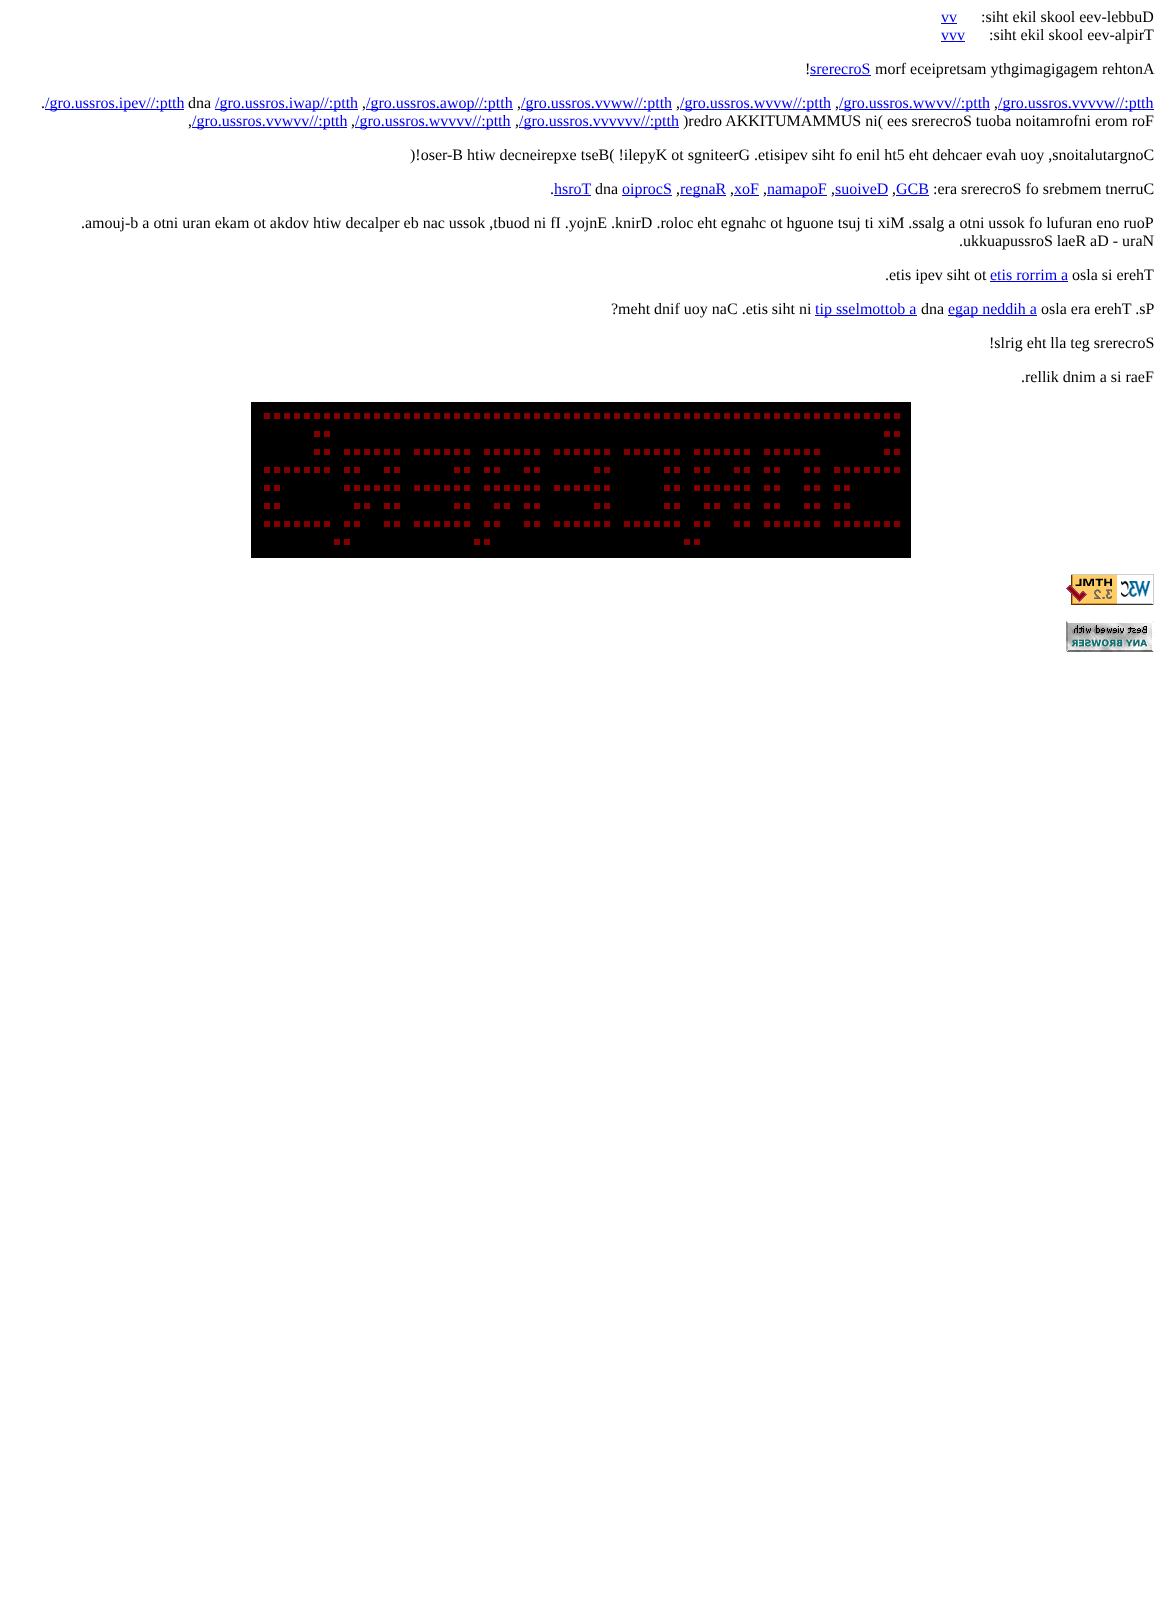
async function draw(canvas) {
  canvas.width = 1162;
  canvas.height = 1621;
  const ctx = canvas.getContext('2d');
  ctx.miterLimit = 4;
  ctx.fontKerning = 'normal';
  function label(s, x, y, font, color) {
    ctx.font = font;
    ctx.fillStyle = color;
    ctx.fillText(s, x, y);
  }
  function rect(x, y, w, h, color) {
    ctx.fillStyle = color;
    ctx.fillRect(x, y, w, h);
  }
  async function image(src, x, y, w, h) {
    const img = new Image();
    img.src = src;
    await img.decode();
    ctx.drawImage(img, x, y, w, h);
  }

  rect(0, 0, 1162, 1621, '#fff');
  label('vv', 941, 22, '16px Liberation Serif', '#00e');
  rect(941, 23, 16, 1, '#00e');
  label(':siht ekil skool eev-lebbuD', 981, 22, '16px Liberation Serif', '#000');
  label('vvv', 941, 40, '16px Liberation Serif', '#00e');
  rect(941, 41, 24, 1, '#00e');
  label(':siht ekil skool eev-alpirT', 989, 40, '16px Liberation Serif', '#000');
  label('!', 805, 74, '16px Liberation Serif', '#000');
  label('srerecroS', 810, 74, '16px Liberation Serif', '#00e');
  rect(810, 75, 61, 1, '#00e');
  label('morf eceipretsam ythgimagigagem rehtonA', 875, 74, '16px Liberation Serif', '#000');
  label('.', 41, 108, '16px Liberation Serif', '#000');
  rect(45, 109, 139, 1, '#00e');
  label('/gro.ussros.ipev//:ptth', 45, 108, '16px Liberation Serif', '#00e');
  label('dna', 188, 108, '16px Liberation Serif', '#000');
  rect(215, 109, 143, 1, '#00e');
  label('/gro.ussros.iwap//:ptth', 215, 108, '16px Liberation Serif', '#00e');
  label(',', 362, 108, '16px Liberation Serif', '#000');
  rect(366, 109, 147, 1, '#00e');
  label('/gro.ussros.awop//:ptth', 366, 108, '16px Liberation Serif', '#00e');
  label(',', 517, 108, '16px Liberation Serif', '#000');
  rect(521, 109, 151, 1, '#00e');
  label('/gro.ussros.vvww//:ptth', 521, 108, '16px Liberation Serif', '#00e');
  label(',', 676, 108, '16px Liberation Serif', '#000');
  rect(680, 109, 151, 1, '#00e');
  label('/gro.ussros.wvvw//:ptth', 680, 108, '16px Liberation Serif', '#00e');
  label(',', 835, 108, '16px Liberation Serif', '#000');
  rect(839, 109, 151, 1, '#00e');
  label('/gro.ussros.wwvv//:ptth', 839, 108, '16px Liberation Serif', '#00e');
  label(',', 994, 108, '16px Liberation Serif', '#000');
  rect(998, 109, 156, 1, '#00e');
  label('/gro.ussros.vvvvw//:ptth', 998, 108, '16px Liberation Serif', '#00e');
  label(',', 188, 126, '16px Liberation Serif', '#000');
  rect(192, 127, 155, 1, '#00e');
  label('/gro.ussros.vvwvv//:ptth', 192, 126, '16px Liberation Serif', '#00e');
  label(',', 351, 126, '16px Liberation Serif', '#000');
  rect(355, 127, 156, 1, '#00e');
  label('/gro.ussros.wvvvv//:ptth', 355, 126, '16px Liberation Serif', '#00e');
  label(',', 515, 126, '16px Liberation Serif', '#000');
  rect(519, 127, 160, 1, '#00e');
  label('/gro.ussros.vvvvvv//:ptth', 519, 126, '16px Liberation Serif', '#00e');
  label(')redro AKKITUMAMMUS ni( ees srerecroS tuoba noitamrofni erom roF', 683, 126, '16px Liberation Serif', '#000');
  label(')!oser-B htiw decneirepxe tseB( !ilepyK ot sgniteerG .etisipev siht fo enil ht5 eht dehcaer evah uoy ,snoitalutargnoC', 410, 160, '16px Liberation Serif', '#000');
  label('.', 550, 194, '16px Liberation Serif', '#000');
  label('hsroT', 554, 194, '16px Liberation Serif', '#00e');
  rect(554, 195, 37, 1, '#00e');
  label('dna', 595, 194, '16px Liberation Serif', '#000');
  rect(622, 195, 50, 1, '#00e');
  label('oiprocS', 622, 194, '16px Liberation Serif', '#00e');
  label(',', 676, 194, '16px Liberation Serif', '#000');
  rect(680, 195, 46, 1, '#00e');
  label('regnaR', 680, 194, '16px Liberation Serif', '#00e');
  label(',', 730, 194, '16px Liberation Serif', '#000');
  label('xoF', 734, 194, '16px Liberation Serif', '#00e');
  rect(734, 195, 25, 1, '#00e');
  label(',', 763, 194, '16px Liberation Serif', '#000');
  rect(767, 195, 60, 1, '#00e');
  label('namapoF', 767, 194, '16px Liberation Serif', '#00e');
  label(',', 831, 194, '16px Liberation Serif', '#000');
  label('suoiveD', 835, 194, '16px Liberation Serif', '#00e');
  rect(835, 195, 53, 1, '#00e');
  label(',', 892, 194, '16px Liberation Serif', '#000');
  label('GCB', 896, 194, '16px Liberation Serif', '#00e');
  rect(896, 195, 33, 1, '#00e');
  label(':era srerecroS fo srebmem tnerruC', 933, 194, '16px Liberation Serif', '#000');
  label('.amouj-b a otni uran ekam ot akdov htiw decalper eb nac ussok ,tbuod ni fI .yojnE .knirD .roloc eht egnahc ot hguone tsuj ti xiM .ssalg a otni ussok fo lufuran eno ruoP', 81, 228, '16px Liberation Serif', '#000');
  label('.ukkuapussroS laeR aD - uraN', 959, 246, '16px Liberation Serif', '#000');
  label('.etis ipev siht ot', 885, 280, '16px Liberation Serif', '#000');
  label('etis rorrim a', 990, 280, '16px Liberation Serif', '#00e');
  rect(990, 281, 78, 1, '#00e');
  label('osla si erehT', 1072, 280, '16px Liberation Serif', '#000');
  label('?meht dnif uoy naC .etis siht ni', 611, 314, '16px Liberation Serif', '#000');
  rect(815, 315, 102, 1, '#00e');
  label('tip sselmottob a', 815, 314, '16px Liberation Serif', '#00e');
  label('dna', 921, 314, '16px Liberation Serif', '#000');
  rect(948, 315, 89, 1, '#00e');
  label('egap neddih a', 948, 314, '16px Liberation Serif', '#00e');
  label('osla era erehT .sP', 1041, 314, '16px Liberation Serif', '#000');
  label('!slrig eht lla teg srerecroS', 989, 348, '16px Liberation Serif', '#000');
  label('.rellik dnim a si raeF', 1021, 382, '16px Liberation Serif', '#000');
  await image('assets/img1.png', 251, 402, 660, 156);
  await image('assets/img2.png', 1066, 574, 88, 31);
  await image('assets/img3.png', 1066, 621, 88, 31);
}

draw(document.querySelector('canvas'));
